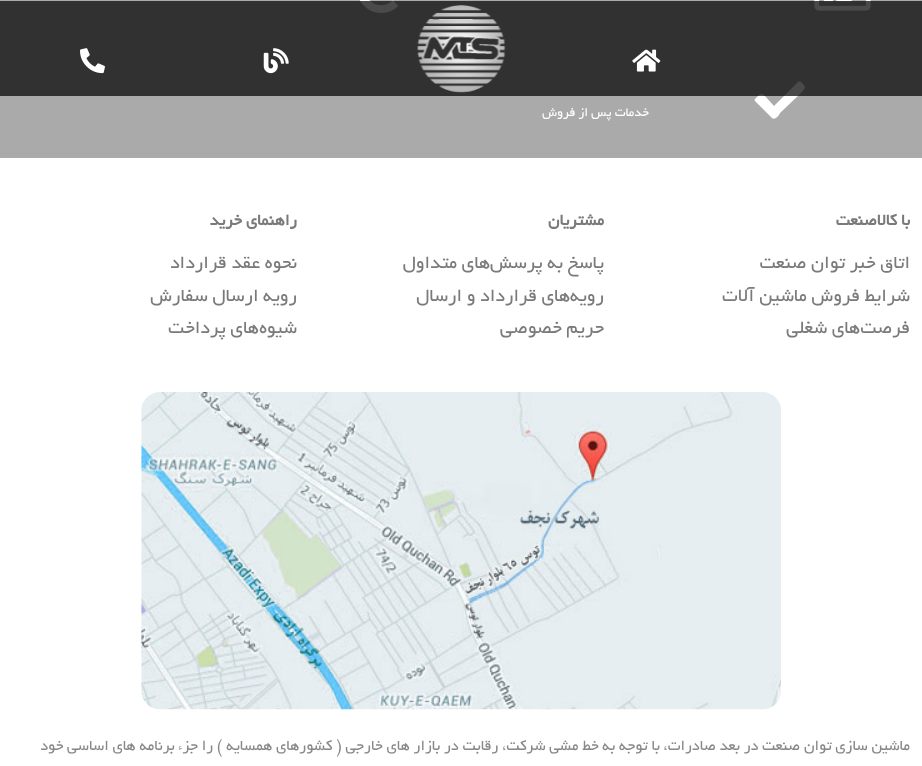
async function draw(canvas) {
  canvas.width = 922;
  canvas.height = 766;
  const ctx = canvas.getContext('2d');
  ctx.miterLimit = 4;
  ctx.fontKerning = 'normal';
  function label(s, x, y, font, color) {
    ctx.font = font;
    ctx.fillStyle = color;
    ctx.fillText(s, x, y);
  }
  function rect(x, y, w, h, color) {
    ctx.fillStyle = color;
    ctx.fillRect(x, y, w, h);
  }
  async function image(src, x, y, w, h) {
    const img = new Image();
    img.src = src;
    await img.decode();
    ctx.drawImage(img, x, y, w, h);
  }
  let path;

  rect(0, 0, 922, 766, '#fff');
  rect(0, 0, 922, 158, '#aaa');
  await image('assets/img5.png', 814, 0, 57, 11);
  await image('assets/img6.png', 359, 0, 39, 13);
  ctx.fillStyle = '#fff';
  path = new Path2D('M772 118L755 101C754 99 756 98 757 97C761 93 761 93 765 96L774 106L798 82C800 81 801 82 802 83C807 88 805 88 800 94L780 113C780 114 775 121 772 118Z');
  ctx.fill(path);
  rect(0, 1, 922, 95, '#000000b5');
  await image('assets/img1.png', 632, 49, 29, 23);
  await image('assets/img2.png', 417, 5, 89, 88);
  await image('assets/img3.png', 263, 48, 26, 26);
  await image('assets/img4.png', 80, 48, 25, 26);
  ctx.direction = 'rtl';
  label('خدمات پس از فروش', 649, 116, '13.75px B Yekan', '#fff');
  label('با کالاصنعت', 910, 225, 'bold 17.5px B Yekan', '#7a7a7a');
  label('اتاق خبر توان صنعت', 910, 268, '20px B Yekan', '#7a7a7a');
  label('شرایط فروش ماشین آلات', 910, 301, '20px B Yekan', '#7a7a7a');
  label('فرصت‌های شغلی', 910, 333, '20px B Yekan', '#7a7a7a');
  label('مشتریان', 604, 225, 'bold 17.5px B Yekan', '#7a7a7a');
  label('پاسخ به پرسش‌های متداول', 604, 268, '20px B Yekan', '#7a7a7a');
  label('رویه‌های قرارداد و ارسال', 604, 301, '20px B Yekan', '#7a7a7a');
  label('حریم خصوصی', 604, 333, '20px B Yekan', '#7a7a7a');
  label('راهنمای خرید', 297, 225, 'bold 17.5px B Yekan', '#7a7a7a');
  label('نحوه عقد قرارداد', 297, 268, '20px B Yekan', '#7a7a7a');
  label('رویه ارسال سفارش', 297, 301, '20px B Yekan', '#7a7a7a');
  label('شیوه‌های پرداخت', 297, 333, '20px B Yekan', '#7a7a7a');
  await image('assets/img7.png', 141, 392, 640, 318);
  label('ماشین سازی توان صنعت در بعد صادرات، با توجه به خط مشی شرکت، رقابت در بازار های خارجی ( کشورهای همسایه ) را جزء برنامه های اساسی خود', 910, 750, '16.25px B Yekan', '#888');
}

draw(document.querySelector('canvas'));
